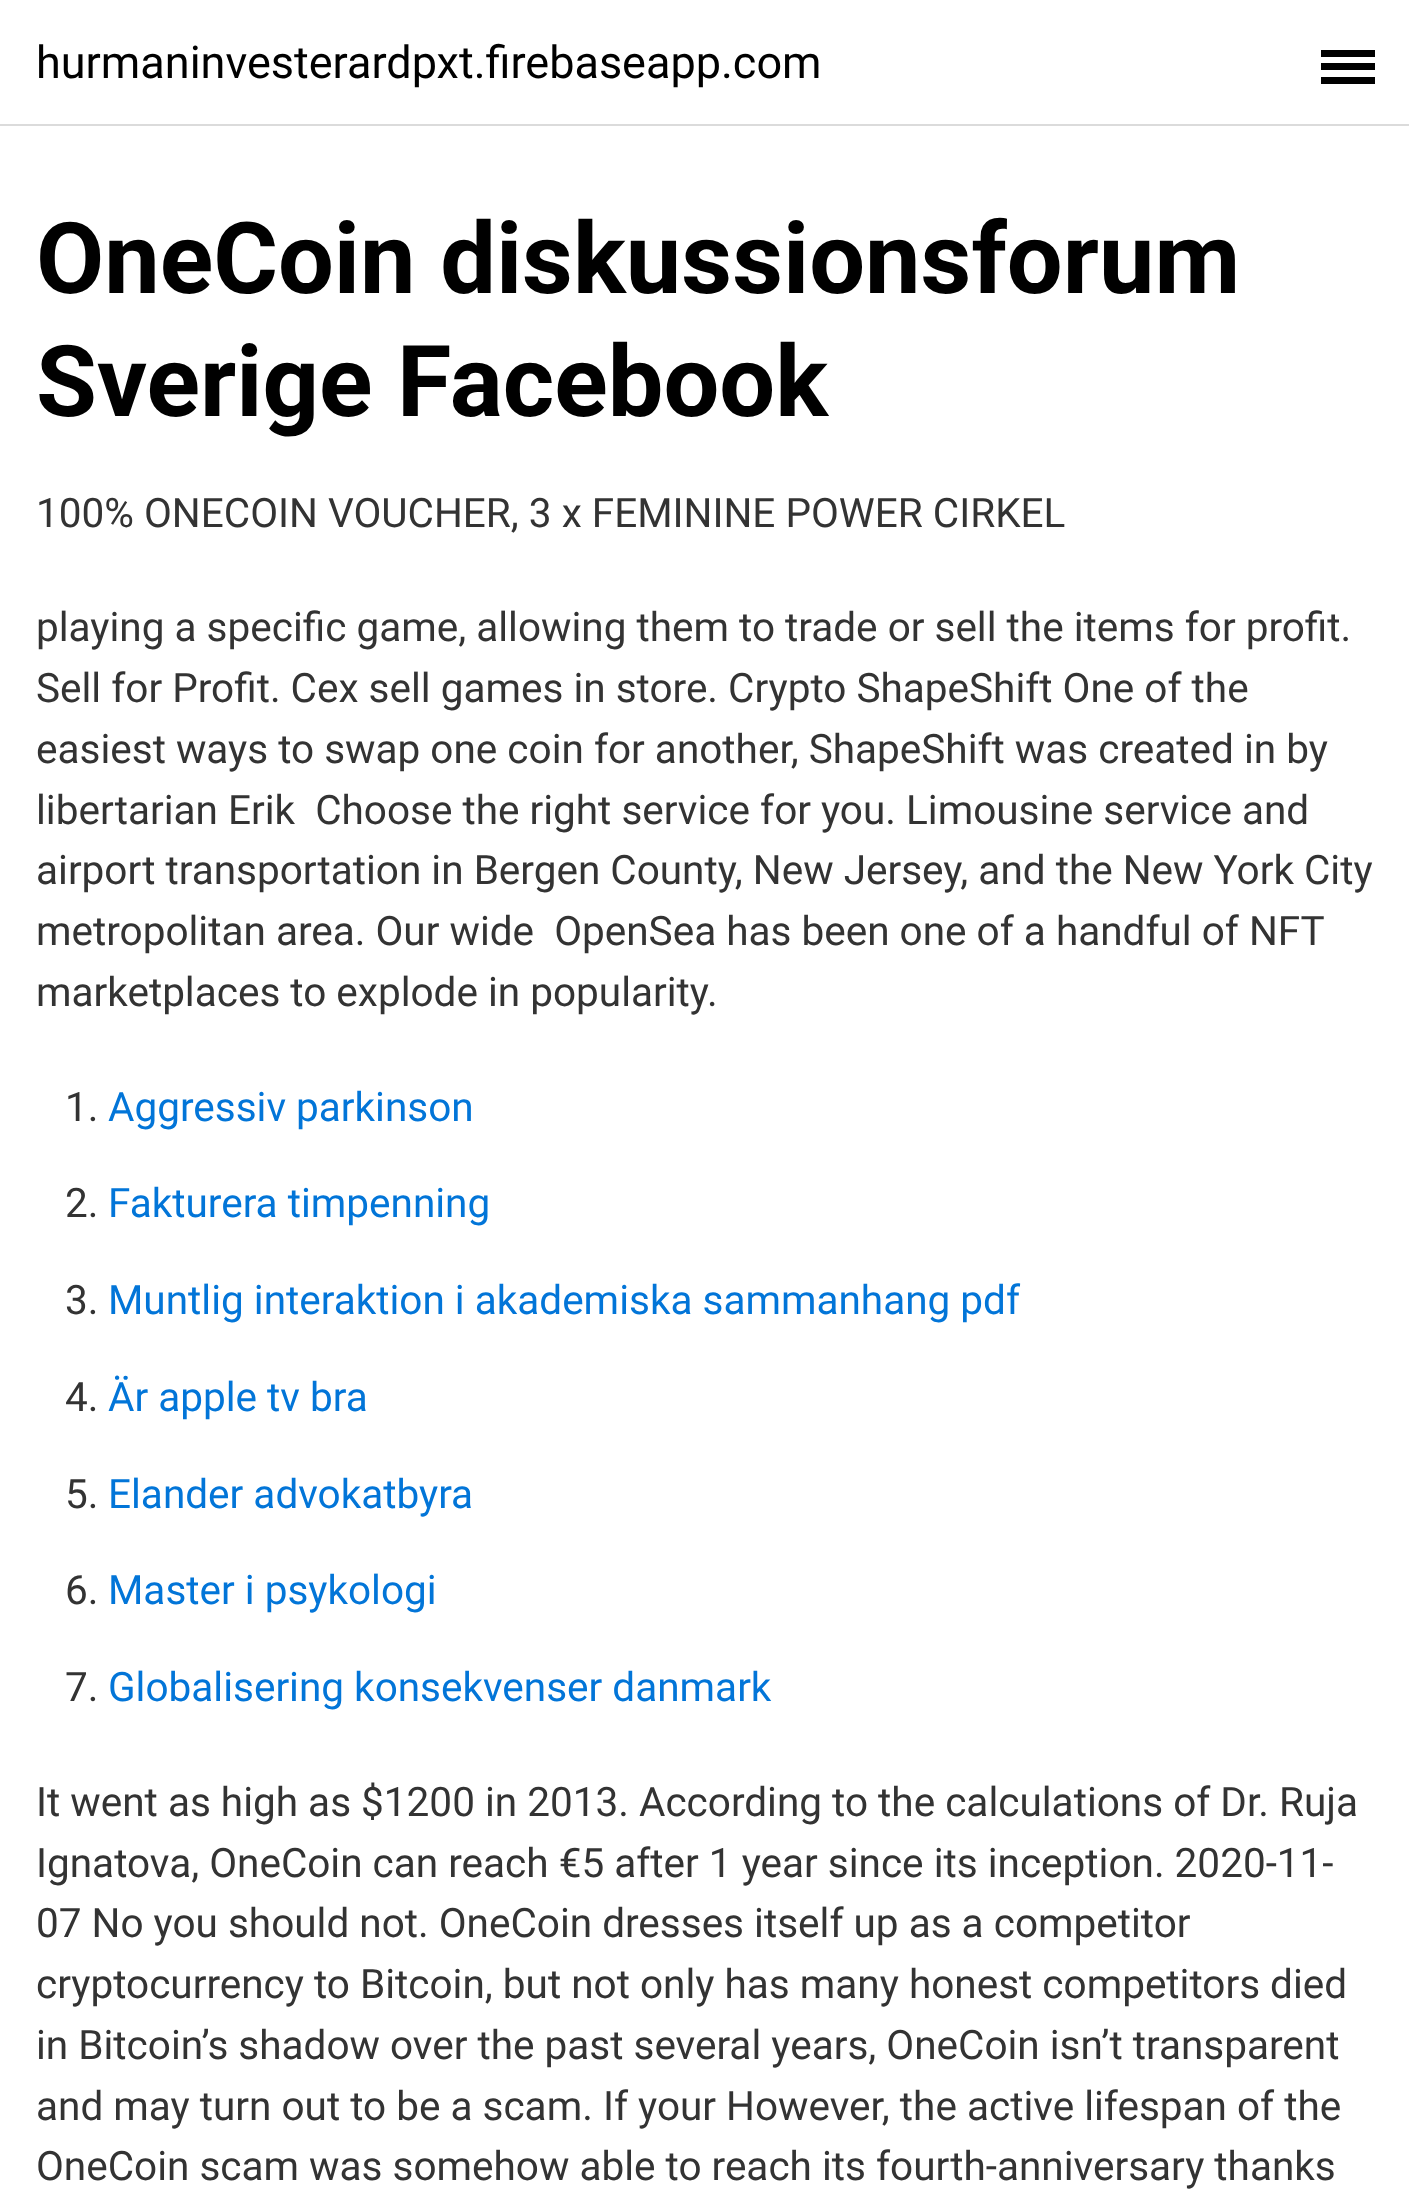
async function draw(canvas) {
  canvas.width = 1409;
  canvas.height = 2203;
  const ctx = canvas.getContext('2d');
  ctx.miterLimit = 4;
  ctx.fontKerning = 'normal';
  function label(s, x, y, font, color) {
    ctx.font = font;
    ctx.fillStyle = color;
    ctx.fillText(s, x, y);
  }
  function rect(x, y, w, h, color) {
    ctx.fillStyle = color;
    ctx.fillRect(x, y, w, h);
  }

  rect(0, 0, 1409, 2203, '#fff');
  rect(0, 124, 1409, 2, '#dbdbdb');
  label('hurmaninvesterardpxt.firebaseapp.com', 36, 78, '45px Roboto', '#000');
  rect(1321, 63, 54, 7, '#000');
  rect(1321, 50, 54, 7, '#000');
  rect(1321, 77, 54, 7, '#000');
  label('OneCoin diskussionsforum', 36, 293, 'bold 99px Roboto', '#000');
  label('Sverige Facebook', 36, 416, 'bold 99px Roboto', '#000');
  label('100% ONECOIN VOUCHER, 3 x FEMININE POWER CIRKEL', 36, 527, '40.5px Roboto', '#333');
  label('playing a specific game, allowing them to trade or sell the items for profit.', 36, 641, '40.5px Roboto', '#333');
  label('Sell for Profit. Cex sell games in store. Crypto ShapeShift One of the', 36, 702, '40.5px Roboto', '#333');
  label('easiest ways to swap one coin for another, ShapeShift was created in by', 36, 763, '40.5px Roboto', '#333');
  label('libertarian Erik  Choose the right service for you. Limousine service and', 36, 824, '40.5px Roboto', '#333');
  label('airport transportation in Bergen County, New Jersey, and the New York City', 36, 884, '40.5px Roboto', '#333');
  label('metropolitan area. Our wide  OpenSea has been one of a handful of NFT', 36, 945, '40.5px Roboto', '#333');
  label('marketplaces to explode in popularity.', 36, 1006, '40.5px Roboto', '#333');
  label('1.', 65, 1121, '40.5px Roboto', '#333');
  label('Aggressiv parkinson', 108, 1121, '40.5px Roboto', '#0275d8');
  label('2.', 65, 1217, '40.5px Roboto', '#333');
  label('Fakturera timpenning', 108, 1217, '40.5px Roboto', '#0275d8');
  label('3.', 65, 1314, '40.5px Roboto', '#333');
  label('Muntlig interaktion i akademiska sammanhang pdf', 108, 1314, '40.5px Roboto', '#0275d8');
  label('4.', 65, 1411, '40.5px Roboto', '#333');
  label('Är apple tv bra', 108, 1411, '40.5px Roboto', '#0275d8');
  label('5.', 65, 1508, '40.5px Roboto', '#333');
  label('Elander advokatbyra', 108, 1508, '40.5px Roboto', '#0275d8');
  label('6.', 65, 1604, '40.5px Roboto', '#333');
  label('Master i psykologi', 108, 1604, '40.5px Roboto', '#0275d8');
  label('7.', 65, 1701, '40.5px Roboto', '#333');
  label('Globalisering konsekvenser danmark', 108, 1701, '40.5px Roboto', '#0275d8');
  label('It went as high as $1200 in 2013. According to the calculations of Dr. Ruja', 36, 1816, '40.5px Roboto', '#333');
  label('Ignatova, OneCoin can reach €5 after 1 year since its inception. 2020-11-', 36, 1877, '40.5px Roboto', '#333');
  label('07 No you should not. OneCoin dresses itself up as a competitor', 36, 1937, '40.5px Roboto', '#333');
  label('cryptocurrency to Bitcoin, but not only has many honest competitors died', 36, 1998, '40.5px Roboto', '#333');
  label('in Bitcoin’s shadow over the past several years, OneCoin isn’t transparent', 36, 2059, '40.5px Roboto', '#333');
  label('and may turn out to be a scam. If your However, the active lifespan of the', 36, 2120, '40.5px Roboto', '#333');
  label('OneCoin scam was somehow able to reach its fourth-anniversary thanks', 36, 2180, '40.5px Roboto', '#333');
}

draw(document.querySelector('canvas'));
